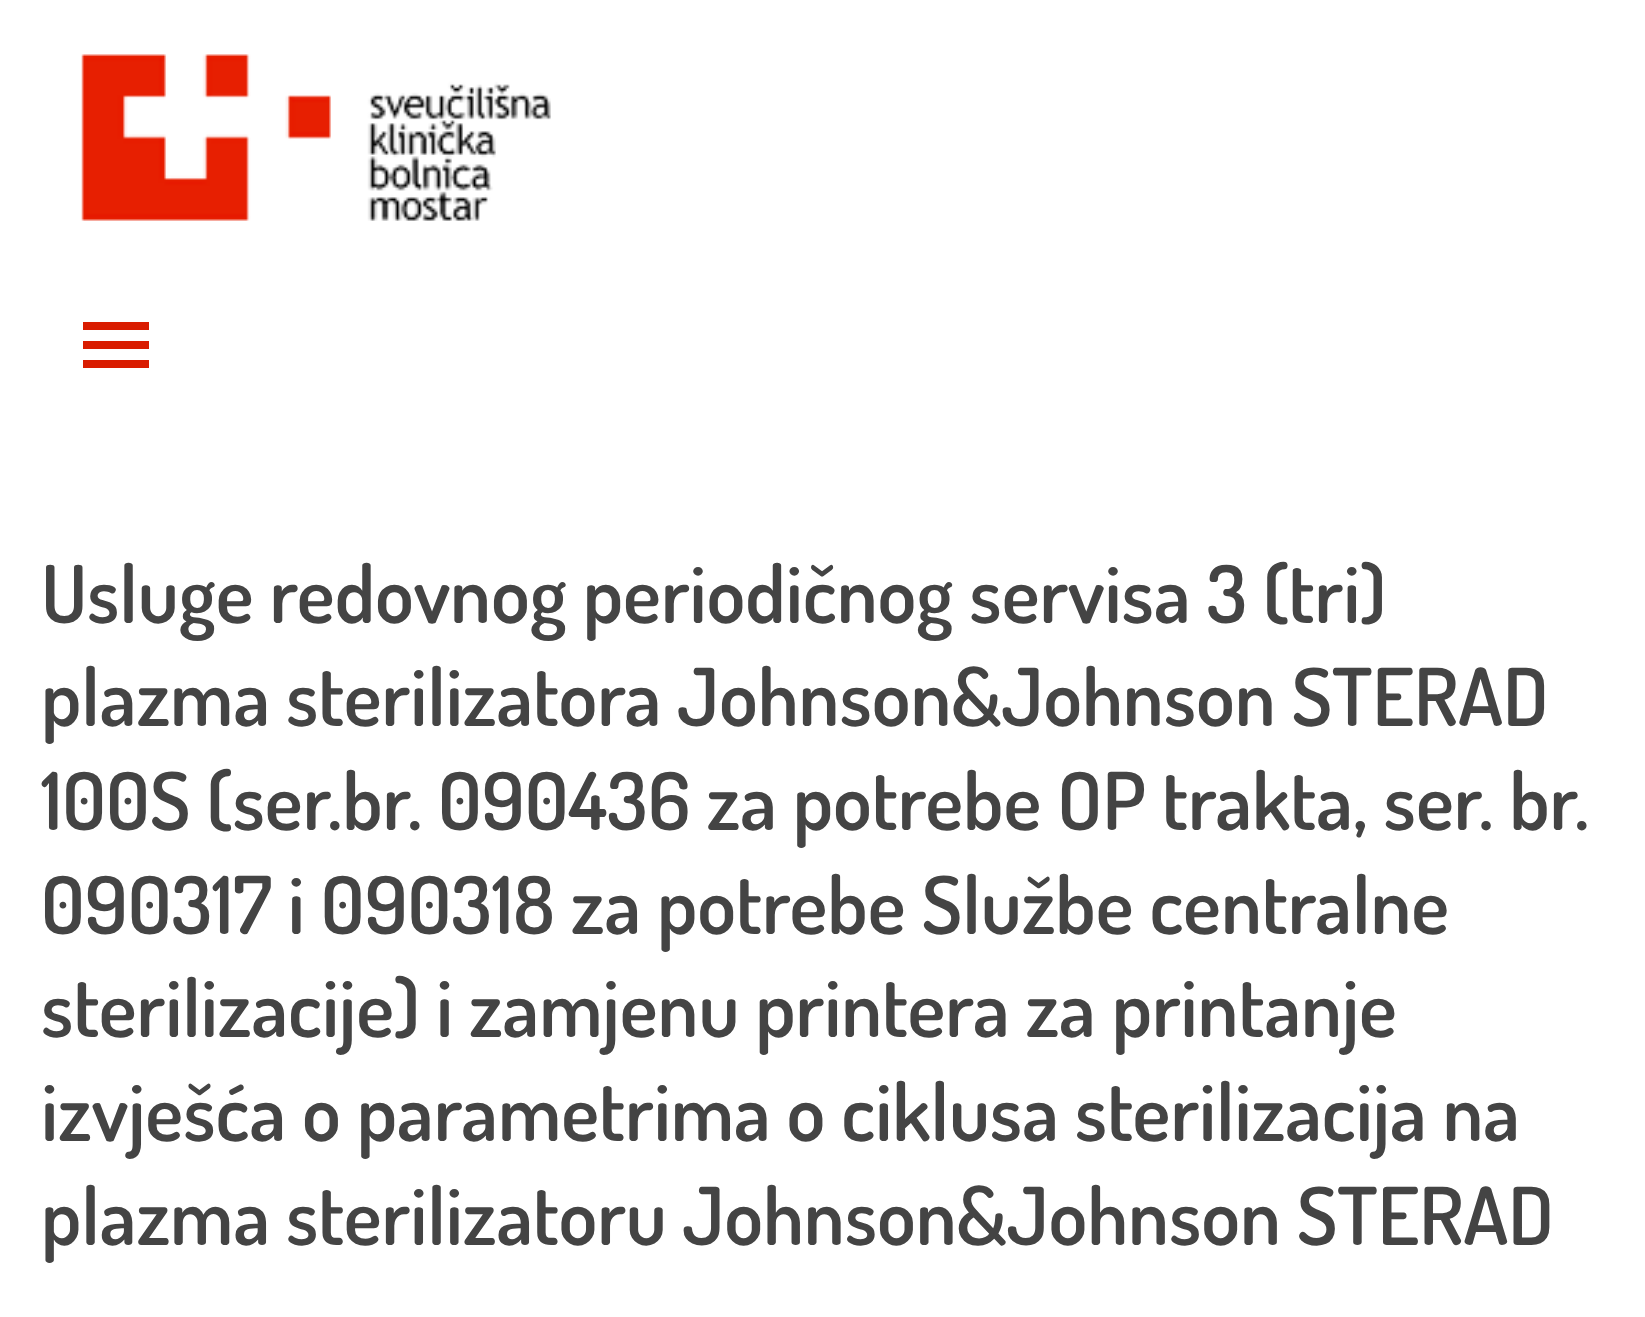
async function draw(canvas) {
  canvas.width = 1645;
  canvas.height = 1317;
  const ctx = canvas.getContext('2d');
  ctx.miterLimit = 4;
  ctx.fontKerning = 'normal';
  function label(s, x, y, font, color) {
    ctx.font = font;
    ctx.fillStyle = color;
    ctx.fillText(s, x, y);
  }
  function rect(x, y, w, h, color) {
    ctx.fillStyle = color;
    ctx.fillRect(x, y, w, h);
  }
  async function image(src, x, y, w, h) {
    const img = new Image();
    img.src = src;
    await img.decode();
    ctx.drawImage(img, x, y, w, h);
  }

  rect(0, 0, 1645, 1317, '#fff');
  await image('assets/img1.png', 81, 54, 470, 167);
  rect(83, 341, 66, 8, '#d91c00');
  rect(83, 322, 66, 8, '#d91c00');
  rect(83, 360, 66, 8, '#d91c00');
  label('Usluge redovnog periodičnog servisa 3 (tri)', 41, 623, '600 79.75px Dosis', '#444');
  label('plazma sterilizatora Johnson&Johnson STERAD', 41, 726, '600 79.75px Dosis', '#444');
  label('100S (ser.br. 090436 za potrebe OP trakta, ser. br.', 41, 830, '600 79.75px Dosis', '#444');
  label('090317 i 090318 za potrebe Službe centralne', 41, 934, '600 79.75px Dosis', '#444');
  label('sterilizacije) i zamjenu printera za printanje', 41, 1037, '600 79.75px Dosis', '#444');
  label('izvješća o parametrima o ciklusa sterilizacija na', 41, 1141, '600 79.75px Dosis', '#444');
  label('plazma sterilizatoru Johnson&Johnson STERAD', 41, 1245, '600 79.75px Dosis', '#444');
}

draw(document.querySelector('canvas'));
